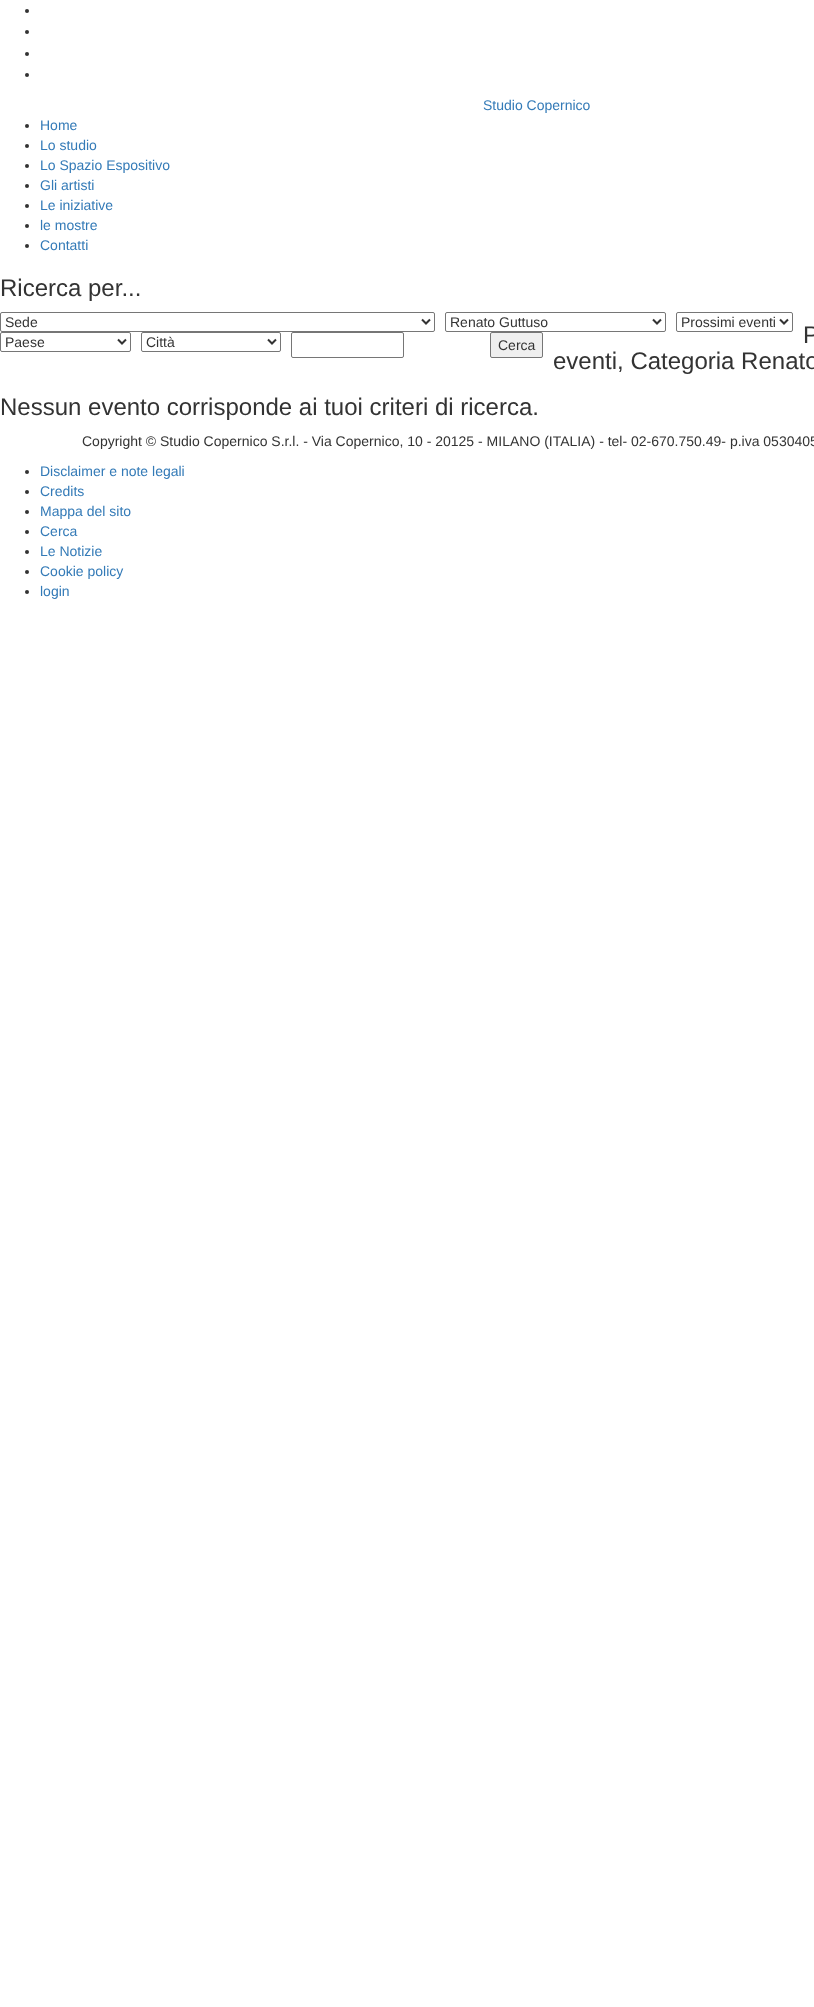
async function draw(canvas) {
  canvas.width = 814;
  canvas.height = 2007;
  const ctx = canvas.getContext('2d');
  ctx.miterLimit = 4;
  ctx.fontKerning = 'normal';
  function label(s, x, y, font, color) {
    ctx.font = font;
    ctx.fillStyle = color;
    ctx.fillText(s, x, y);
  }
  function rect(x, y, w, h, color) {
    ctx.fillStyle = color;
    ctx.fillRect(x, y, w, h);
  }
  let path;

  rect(0, 0, 814, 2007, '#fff');
  ctx.fillStyle = '#333';
  ctx.beginPath();
  ctx.arc(27, 11, 2, 0, 2 * Math.PI);
  ctx.fill();
  ctx.beginPath();
  ctx.arc(27, 32, 2, 0, 2 * Math.PI);
  ctx.fill();
  ctx.beginPath();
  ctx.arc(27, 54, 2, 0, 2 * Math.PI);
  ctx.fill();
  ctx.beginPath();
  ctx.arc(27, 75, 2, 0, 2 * Math.PI);
  ctx.fill();
  label('Studio Copernico', 483, 110, '14px Liberation Sans', '#337ab7');
  ctx.fillStyle = '#333';
  ctx.beginPath();
  ctx.arc(27, 126, 2, 0, 2 * Math.PI);
  ctx.fill();
  label('Home', 40, 130, '14px Liberation Sans', '#337ab7');
  ctx.fillStyle = '#333';
  ctx.beginPath();
  ctx.arc(27, 146, 2, 0, 2 * Math.PI);
  ctx.fill();
  label('Lo studio', 40, 150, '14px Liberation Sans', '#337ab7');
  ctx.fillStyle = '#333';
  ctx.beginPath();
  ctx.arc(27, 166, 2, 0, 2 * Math.PI);
  ctx.fill();
  label('Lo Spazio Espositivo', 40, 170, '14px Liberation Sans', '#337ab7');
  ctx.fillStyle = '#333';
  ctx.beginPath();
  ctx.arc(27, 186, 2, 0, 2 * Math.PI);
  ctx.fill();
  label('Gli artisti', 40, 190, '14px Liberation Sans', '#337ab7');
  ctx.fillStyle = '#333';
  ctx.beginPath();
  ctx.arc(27, 206, 2, 0, 2 * Math.PI);
  ctx.fill();
  label('Le iniziative', 40, 210, '14px Liberation Sans', '#337ab7');
  ctx.fillStyle = '#333';
  ctx.beginPath();
  ctx.arc(27, 226, 2, 0, 2 * Math.PI);
  ctx.fill();
  label('le mostre', 40, 230, '14px Liberation Sans', '#337ab7');
  ctx.fillStyle = '#333';
  ctx.beginPath();
  ctx.arc(27, 246, 2, 0, 2 * Math.PI);
  ctx.fill();
  label('Contatti', 40, 250, '14px Liberation Sans', '#337ab7');
  label('Ricerca per...', 0, 296, '24px Liberation Sans', '#333');
  ctx.beginPath();
  ctx.roundRect(0.5, 312.5, 434, 19, 1.5);
  ctx.strokeStyle = '#767676';
  ctx.stroke();
  path = new Path2D('M422 319.5L426 323.5L430 319.5');
  ctx.strokeStyle = '#333';
  ctx.lineWidth = 2;
  ctx.stroke(path);
  label('Sede', 5, 327, '14px Liberation Sans', '#333');
  ctx.beginPath();
  ctx.roundRect(445.5, 312.5, 220, 19, 1.5);
  ctx.strokeStyle = '#767676';
  ctx.lineWidth = 1;
  ctx.stroke();
  path = new Path2D('M653 319.5L657 323.5L661 319.5');
  ctx.strokeStyle = '#333';
  ctx.lineWidth = 2;
  ctx.stroke(path);
  label('Renato Guttuso', 450, 327, '14px Liberation Sans', '#333');
  ctx.beginPath();
  ctx.roundRect(676.5, 312.5, 116, 19, 1.5);
  ctx.strokeStyle = '#767676';
  ctx.lineWidth = 1;
  ctx.stroke();
  path = new Path2D('M780 319.5L784 323.5L788 319.5');
  ctx.strokeStyle = '#333';
  ctx.lineWidth = 2;
  ctx.stroke(path);
  label('Prossimi eventi', 681, 327, '14px Liberation Sans', '#333');
  ctx.beginPath();
  ctx.roundRect(0.5, 332.5, 130, 19, 1.5);
  ctx.strokeStyle = '#767676';
  ctx.lineWidth = 1;
  ctx.stroke();
  path = new Path2D('M118 339.5L122 343.5L126 339.5');
  ctx.strokeStyle = '#333';
  ctx.lineWidth = 2;
  ctx.stroke(path);
  label('Paese', 5, 347, '14px Liberation Sans', '#333');
  ctx.beginPath();
  ctx.roundRect(141.5, 332.5, 139, 19, 1.5);
  ctx.strokeStyle = '#767676';
  ctx.lineWidth = 1;
  ctx.stroke();
  path = new Path2D('M268 339.5L272 343.5L276 339.5');
  ctx.strokeStyle = '#333';
  ctx.lineWidth = 2;
  ctx.stroke(path);
  label('Città', 146, 347, '14px Liberation Sans', '#333');
  ctx.beginPath();
  ctx.roundRect(291.5, 332.5, 112, 25, 1.5);
  ctx.strokeStyle = '#767676';
  ctx.lineWidth = 1;
  ctx.stroke();
  ctx.fillStyle = '#efefef';
  ctx.beginPath();
  ctx.roundRect(490.5, 332.5, 52, 25, 1.5);
  ctx.fill();
  ctx.stroke();
  label('Cerca', 498, 350, '14px Liberation Sans', '#333');
  label('P', 803, 343, '24px Liberation Sans', '#333');
  label('eventi, Categoria Renato', 553, 369, '24px Liberation Sans', '#333');
  label('Nessun evento corrisponde ai tuoi criteri di ricerca.', 0, 415, '24px Liberation Sans', '#333');
  label('Copyright © Studio Copernico S.r.l. - Via Copernico, 10 - 20125 - MILANO (ITALIA) - tel- 02-670.750.49- p.iva 0530405', 82, 446, '14px Liberation Sans', '#333');
  ctx.beginPath();
  ctx.arc(27, 472, 2, 0, 2 * Math.PI);
  ctx.fill();
  label('Disclaimer e note legali', 40, 476, '14px Liberation Sans', '#337ab7');
  ctx.fillStyle = '#333';
  ctx.beginPath();
  ctx.arc(27, 492, 2, 0, 2 * Math.PI);
  ctx.fill();
  label('Credits', 40, 496, '14px Liberation Sans', '#337ab7');
  ctx.fillStyle = '#333';
  ctx.beginPath();
  ctx.arc(27, 512, 2, 0, 2 * Math.PI);
  ctx.fill();
  label('Mappa del sito', 40, 516, '14px Liberation Sans', '#337ab7');
  ctx.fillStyle = '#333';
  ctx.beginPath();
  ctx.arc(27, 532, 2, 0, 2 * Math.PI);
  ctx.fill();
  label('Cerca', 40, 536, '14px Liberation Sans', '#337ab7');
  ctx.fillStyle = '#333';
  ctx.beginPath();
  ctx.arc(27, 552, 2, 0, 2 * Math.PI);
  ctx.fill();
  label('Le Notizie', 40, 556, '14px Liberation Sans', '#337ab7');
  ctx.fillStyle = '#333';
  ctx.beginPath();
  ctx.arc(27, 572, 2, 0, 2 * Math.PI);
  ctx.fill();
  label('Cookie policy', 40, 576, '14px Liberation Sans', '#337ab7');
  ctx.fillStyle = '#333';
  ctx.beginPath();
  ctx.arc(27, 592, 2, 0, 2 * Math.PI);
  ctx.fill();
  label('login', 40, 596, '14px Liberation Sans', '#337ab7');
}

draw(document.querySelector('canvas'));
